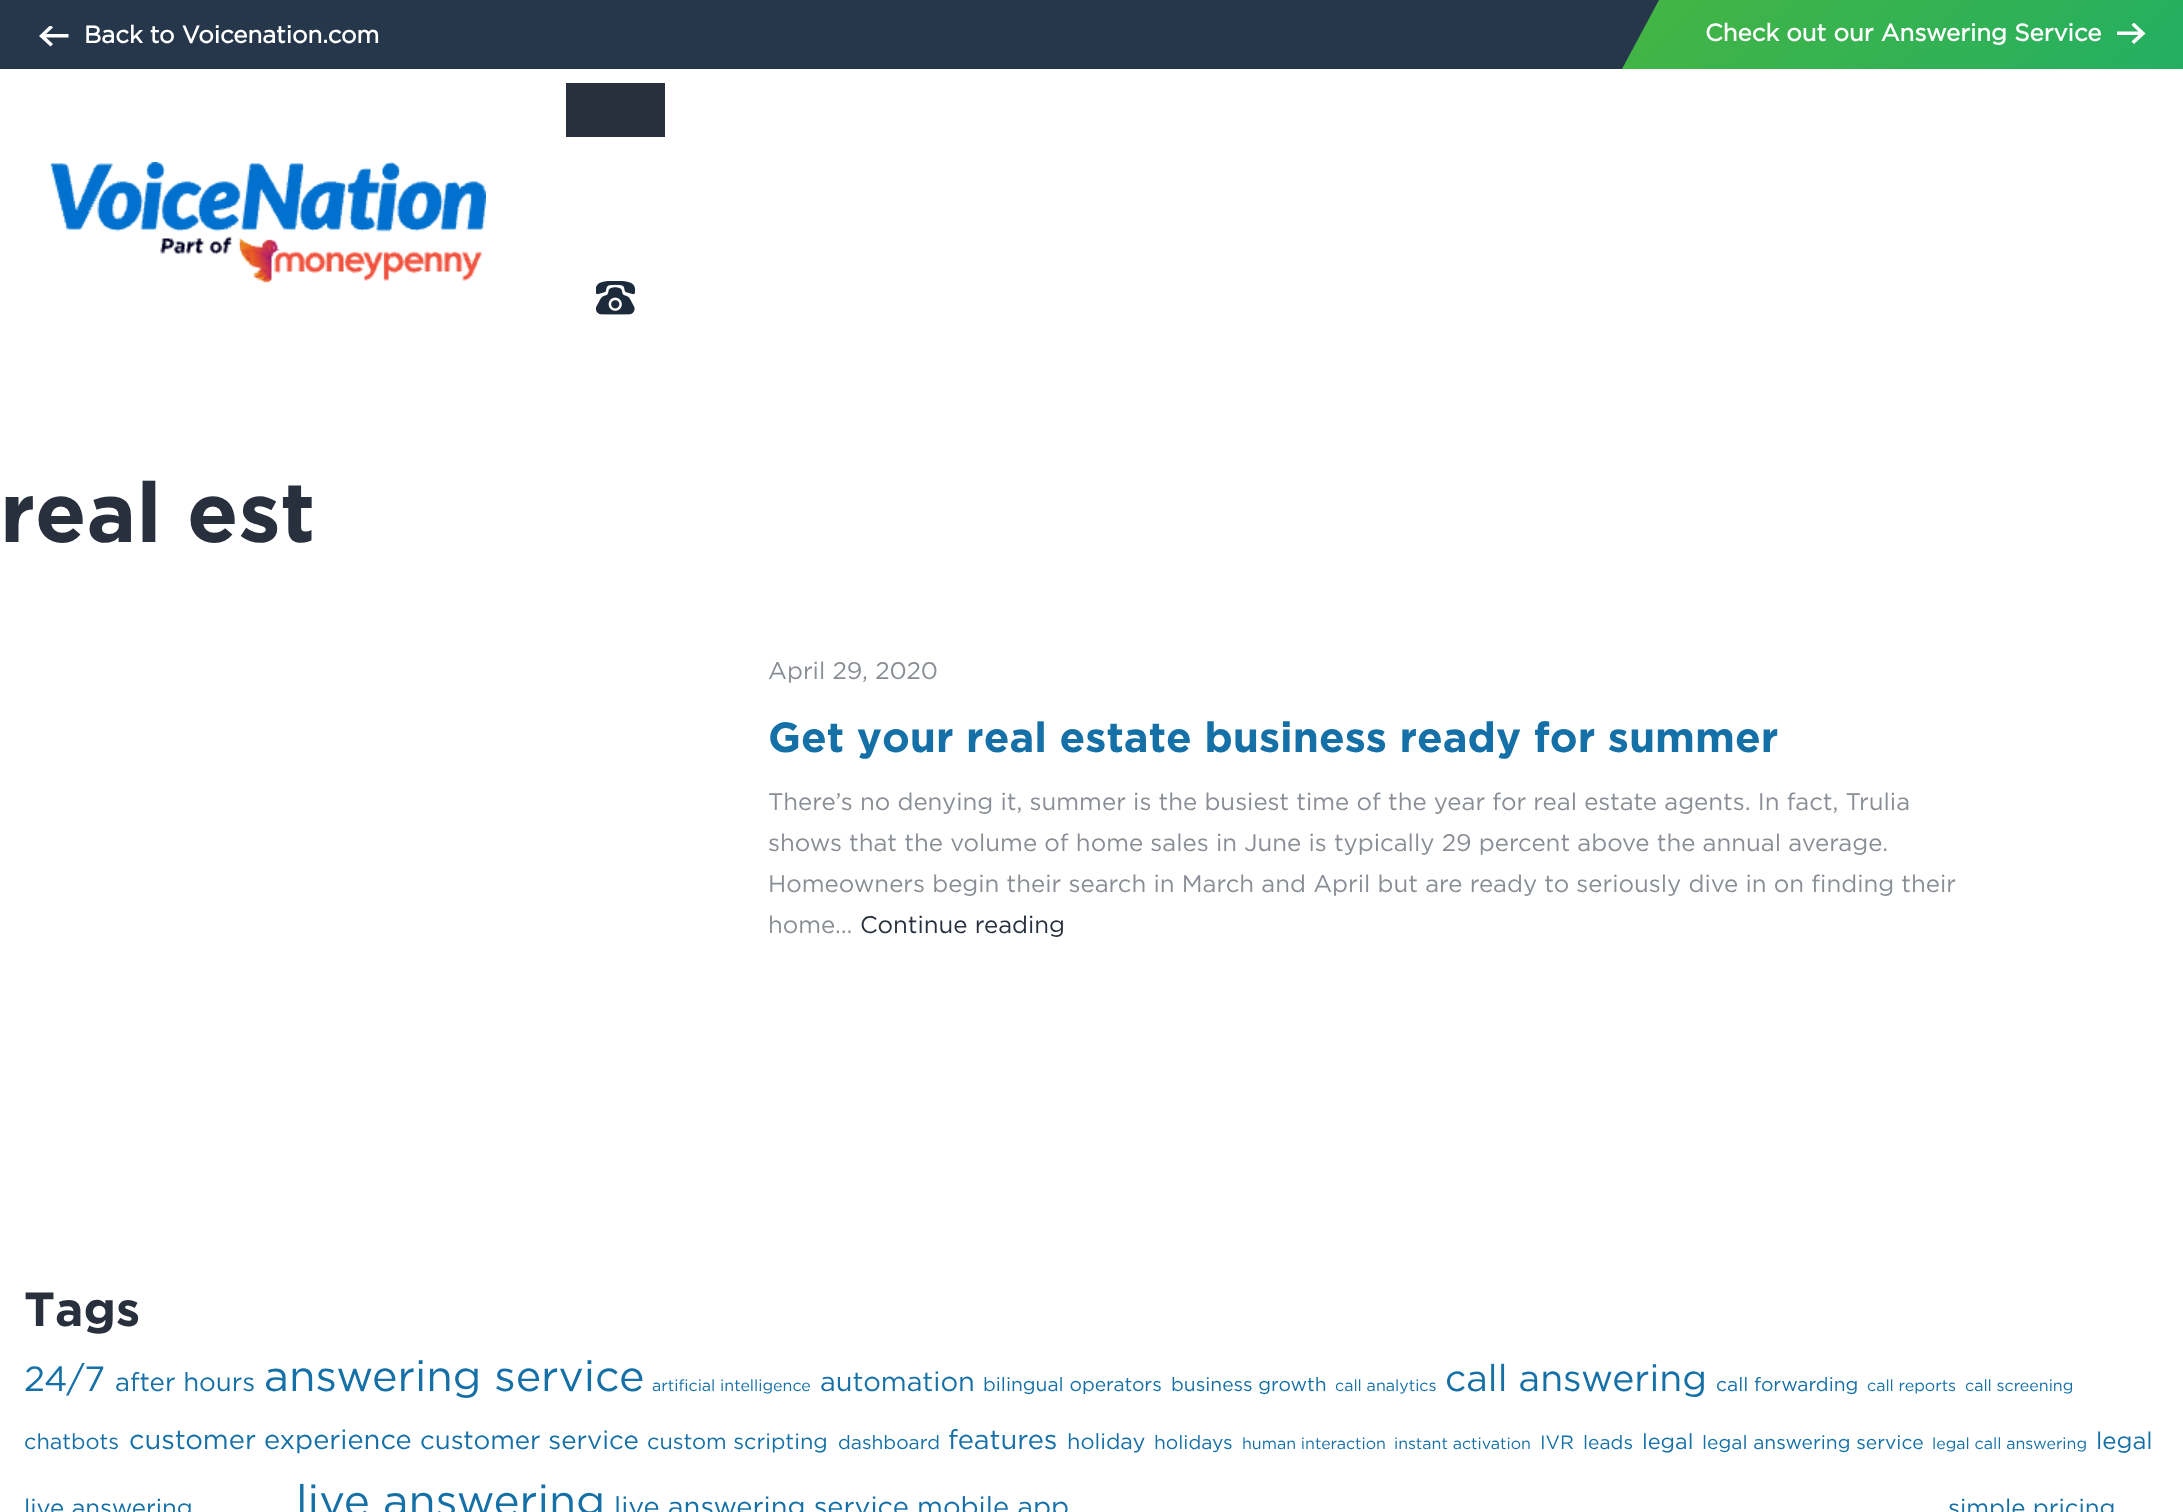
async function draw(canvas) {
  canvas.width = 2183;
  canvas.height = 1512;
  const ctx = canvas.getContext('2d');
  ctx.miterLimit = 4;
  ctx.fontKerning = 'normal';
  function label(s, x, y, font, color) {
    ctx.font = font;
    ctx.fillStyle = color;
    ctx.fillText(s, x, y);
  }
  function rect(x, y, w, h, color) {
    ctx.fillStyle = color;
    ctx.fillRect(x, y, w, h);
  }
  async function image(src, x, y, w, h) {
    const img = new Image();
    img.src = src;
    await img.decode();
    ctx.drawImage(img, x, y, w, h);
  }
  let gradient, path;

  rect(0, 0, 2183, 1512, '#fff');
  rect(0, 0, 1659, 69, '#26374b');
  ctx.save();
  ctx.beginPath();
  ctx.rect(39, 26, 30, 21);
  ctx.clip();
  ctx.fillStyle = '#fff';
  path = new Path2D('M53 27.5L46 34H68.5V37.5H46L53 44L50.5 46.5L39 36L50.5 25Z');
  ctx.fill(path);
  ctx.restore();
  label('Back to Voicenation.com', 84, 43, 'bold 24px Gotham', '#fff');
  gradient = ctx.createLinearGradient(1740, -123, 2066, 192);
  gradient.addColorStop(0, '#45b543');
  gradient.addColorStop(1, '#23af62');
  ctx.fillStyle = gradient;
  path = new Path2D('M1659 0L1622 69H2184V0Z');
  ctx.fill(path);
  label('Check out our Answering Service', 1705, 41, 'bold 24px Gotham', '#fff');
  ctx.save();
  ctx.beginPath();
  ctx.rect(2117, 23, 30, 21);
  ctx.clip();
  path = new Path2D('M2131.5 41.5L2138.5 35H2116.5V31.5H2138.5L2131.5 25L2134 22.5L2145.5 33.5L2134 44Z');
  ctx.fill(path);
  ctx.restore();
  await image('assets/img1.png', 50, 162, 436, 121);
  rect(566, 83, 99, 54, '#28303d');
  await image('assets/img2.png', 596, 281, 39, 34);
  label('real est', 0, 542, 'bold 84px "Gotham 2"', '#28303d');
  label('April 29, 2020', 768, 679, '24px Gotham', '#898e95');
  label('Get your real estate business ready for summer', 768, 752, 'bold 42px "Gotham 2"', '#1570a7');
  label('There’s no denying it, summer is the busiest time of the year for real estate agents. In fact, Trulia', 768, 810, '24px Gotham', '#898e95');
  label('shows that the volume of home sales in June is typically 29 percent above the annual average.', 768, 851, '24px Gotham', '#898e95');
  label('Homeowners begin their search in March and April but are ready to seriously dive in on finding their', 768, 892, '24px Gotham', '#898e95');
  label('home…', 768, 933, '24px Gotham', '#898e95');
  label('Continue reading', 860, 933, '24px Gotham', '#28303d');
  label('Tags', 24, 1326, 'bold 48px "Gotham 2"', '#28303d');
  label('24/7', 24, 1391, '35px Gotham', '#1570a7');
  label('after hours', 115, 1391, '25.9px Gotham', '#1570a7');
  label('answering service', 264, 1391, '43px Gotham', '#1570a7');
  label('artificial intelligence', 652, 1391, '16px Gotham', '#1570a7');
  label('automation', 820, 1391, '27.25px Gotham', '#1570a7');
  label('bilingual operators', 983, 1391, '19.25px Gotham', '#1570a7');
  label('business growth', 1171, 1391, '19.25px Gotham', '#1570a7');
  label('call analytics', 1335, 1391, '16px Gotham', '#1570a7');
  label('call answering', 1445, 1391, '37.25px Gotham', '#1570a7');
  label('call forwarding', 1716, 1391, '19.25px Gotham', '#1570a7');
  label('call reports', 1867, 1391, '16px Gotham', '#1570a7');
  label('call screening', 1965, 1391, '16px Gotham', '#1570a7');
  label('chatbots', 24, 1449, '21.75px Gotham', '#1570a7');
  label('customer experience', 129, 1449, '27.25px Gotham', '#1570a7');
  label('customer service', 420, 1449, '25.9px Gotham', '#1570a7');
  label('custom scripting', 647, 1449, '21.75px Gotham', '#1570a7');
  label('dashboard', 838, 1449, '19.25px Gotham', '#1570a7');
  label('features', 948, 1449, '27.25px Gotham', '#1570a7');
  label('holiday', 1067, 1449, '21.75px Gotham', '#1570a7');
  label('holidays', 1154, 1449, '19.25px Gotham', '#1570a7');
  label('human interaction', 1242, 1449, '16px Gotham', '#1570a7');
  label('instant activation', 1394, 1449, '16px Gotham', '#1570a7');
  label('IVR', 1540, 1449, '19.25px Gotham', '#1570a7');
  label('leads', 1583, 1449, '19.25px Gotham', '#1570a7');
  label('legal', 1642, 1449, '21.75px Gotham', '#1570a7');
  label('legal answering service', 1702, 1449, '19.25px Gotham', '#1570a7');
  label('legal call answering', 1932, 1449, '16px Gotham', '#1570a7');
  label('legal', 2096, 1449, '24px Gotham', '#1570a7');
  label('live answering', 24, 1516, '24px Gotham', '#1570a7');
  label('live answering', 296, 1516, '44px Gotham', '#1570a7');
  label('live answering service', 614, 1516, '27.25px Gotham', '#1570a7');
  label('mobile app', 917, 1516, '27.25px Gotham', '#1570a7');
  label('simple pricing', 1948, 1516, '24px Gotham', '#1570a7');
}

draw(document.querySelector('canvas'));
